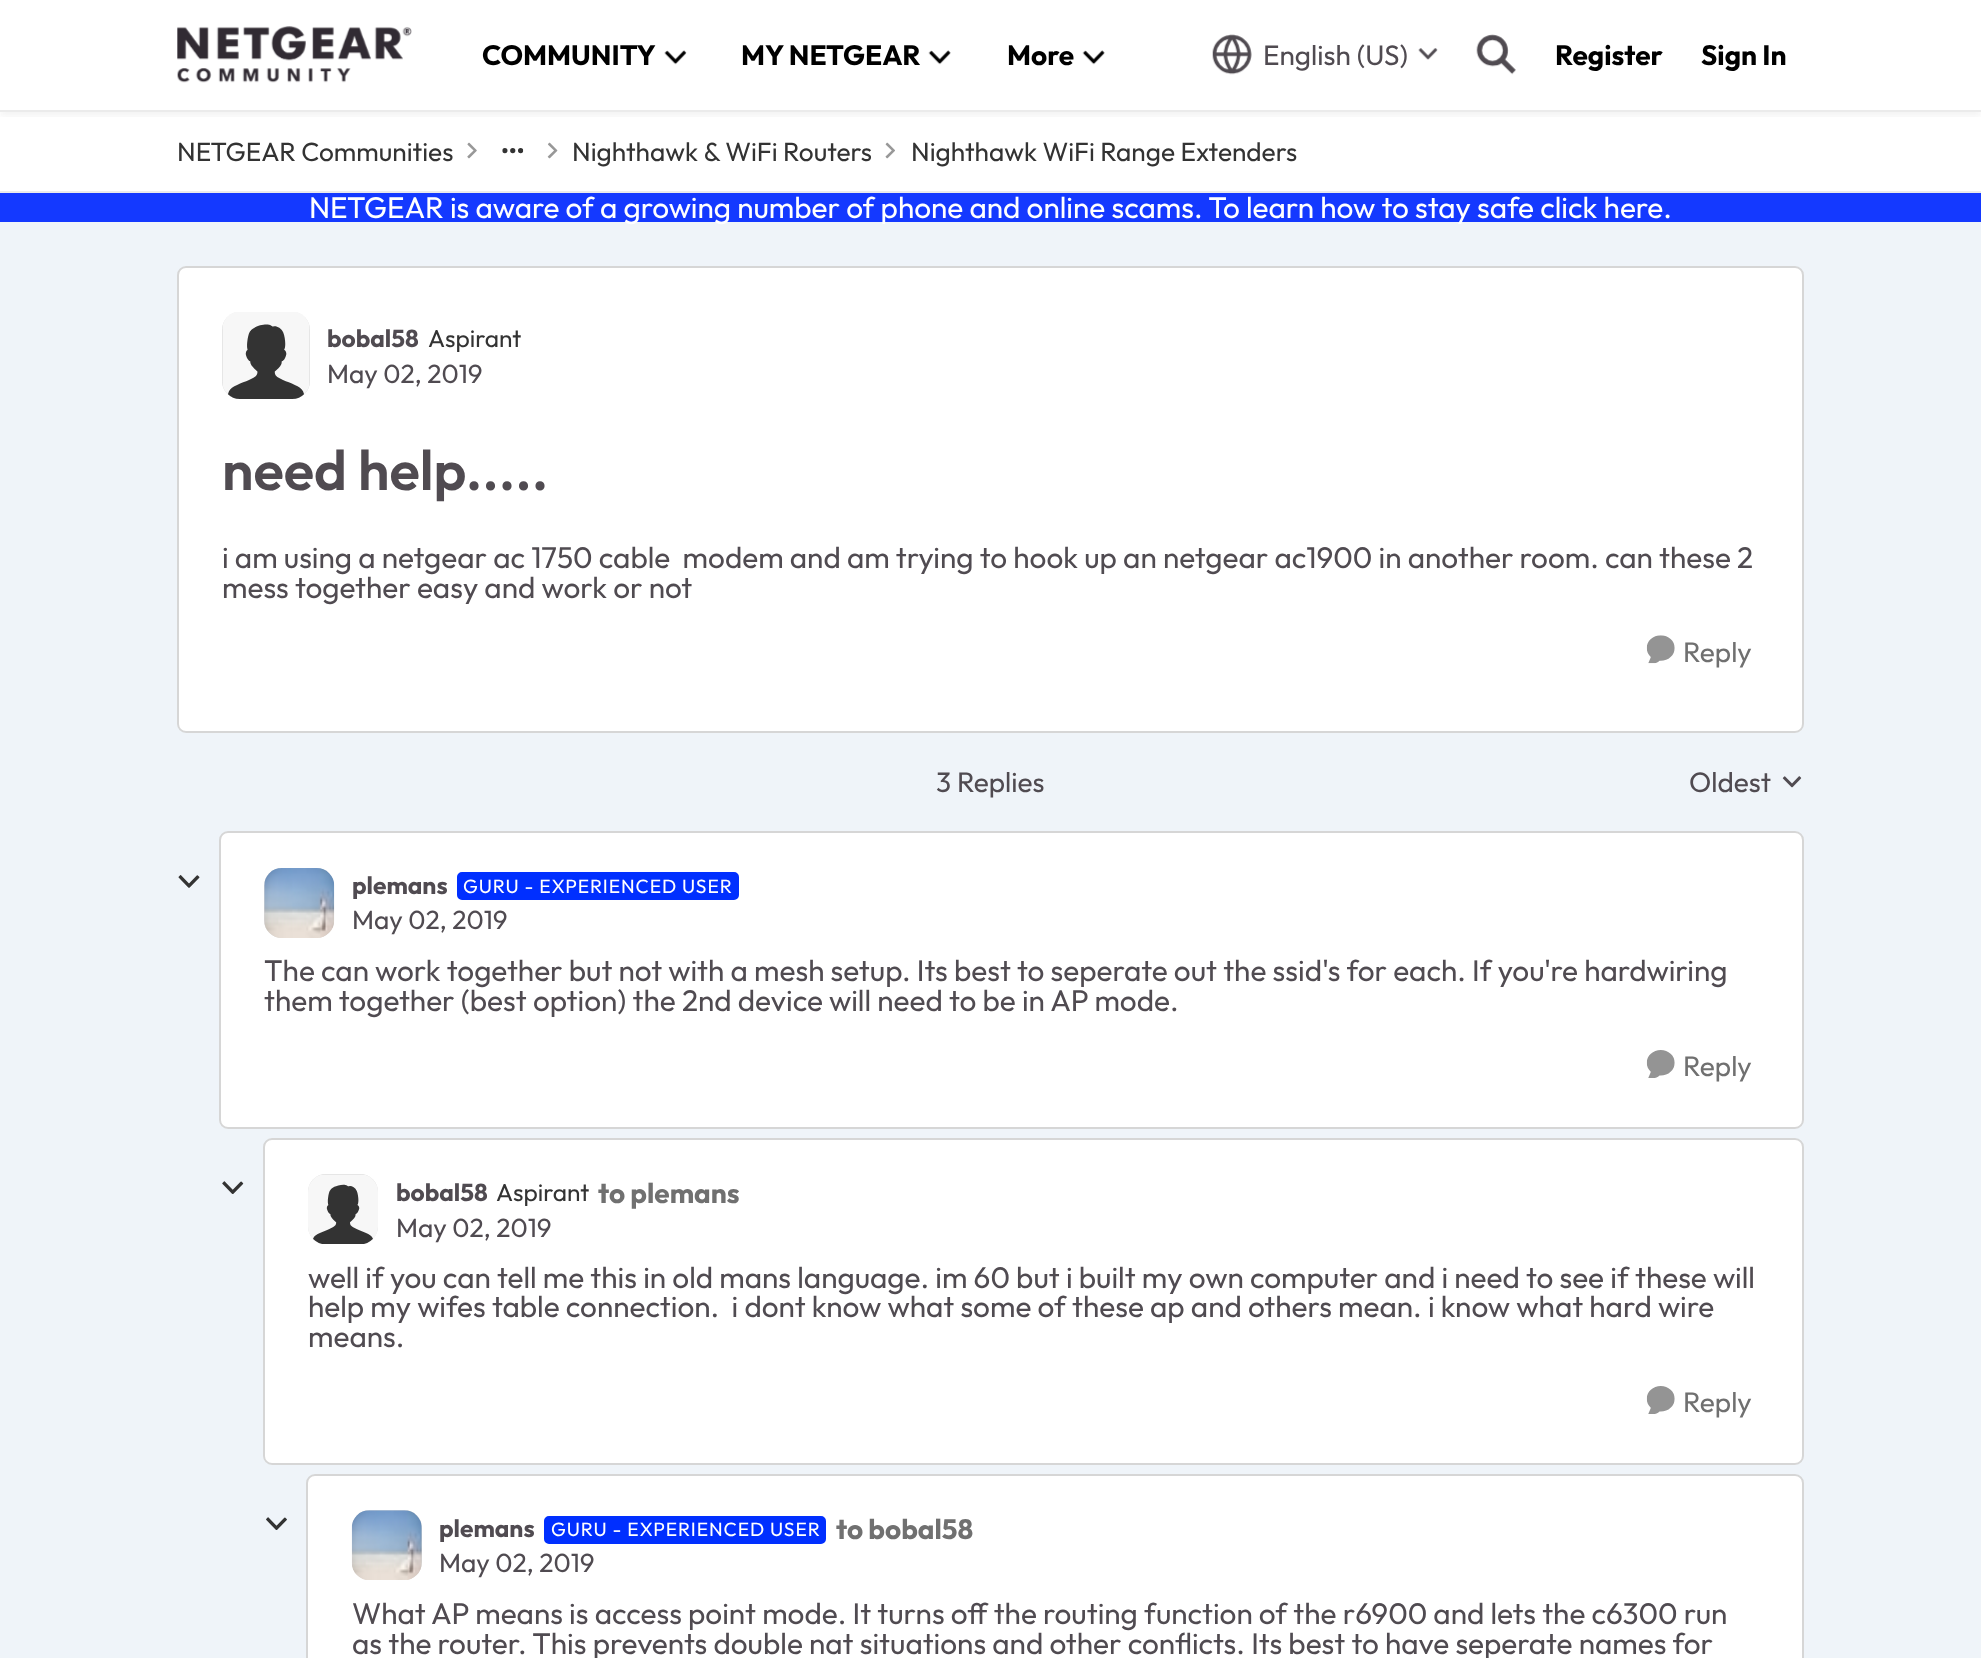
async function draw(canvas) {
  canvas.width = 1981;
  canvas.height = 1658;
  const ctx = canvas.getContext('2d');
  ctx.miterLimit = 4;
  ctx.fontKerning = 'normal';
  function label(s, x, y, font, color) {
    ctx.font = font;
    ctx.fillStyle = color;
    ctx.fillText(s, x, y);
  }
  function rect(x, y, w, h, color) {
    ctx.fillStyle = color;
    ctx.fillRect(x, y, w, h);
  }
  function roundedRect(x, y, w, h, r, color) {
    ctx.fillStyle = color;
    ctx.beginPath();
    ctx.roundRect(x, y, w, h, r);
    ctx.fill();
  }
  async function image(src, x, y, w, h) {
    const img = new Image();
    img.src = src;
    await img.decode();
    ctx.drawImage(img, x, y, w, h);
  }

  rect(0, 0, 1981, 1658, '#eff4f9');
  rect(0, 0, 1981, 191, '#fff');
  ctx.save();
  ctx.beginPath();
  ctx.rect(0, 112, 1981, 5);
  ctx.clip();
  ctx.fillStyle = '#3333330f';
  ctx.filter = 'blur(3.5px)';
  ctx.beginPath();
  ctx.rect(0, 4, 1981, 112);
  ctx.fill();
  ctx.filter = 'none';
  ctx.restore();
  rect(0, 110, 1981, 2, '#ebebeb');
  await image('assets/img1.png', 177, 26, 235, 57);
  label('COMMUNITY', 482, 65, 'bold 28px Outfit', '#000');
  await image('assets/img2.png', 664, 50, 23, 15);
  label('MY NETGEAR', 741, 65, 'bold 28px Outfit', '#000');
  await image('assets/img3.png', 928, 50, 23, 15);
  label('More', 1007, 65, 'bold 28px Outfit', '#000');
  await image('assets/img3.png', 1082, 50, 23, 15);
  await image('assets/img4.png', 1212, 34, 40, 41);
  label('English (US)', 1263, 65, '28px Outfit', '#504b51');
  await image('assets/img5.png', 1418, 48, 20, 12);
  await image('assets/img6.png', 1476, 34, 40, 41);
  label('Register', 1555, 65, 'bold 28px Outfit', '#000');
  label('Sign In', 1701, 65, 'bold 28px Outfit', '#000');
  rect(0, 191, 1981, 2, '#ebebeb');
  label('NETGEAR Communities', 177, 161, '26.25px Outfit', '#333');
  await image('assets/img7.png', 467, 142, 10, 17);
  await image('assets/img8.png', 502, 148, 22, 6);
  await image('assets/img9.png', 547, 142, 11, 17);
  label('Nighthawk & WiFi Routers', 572, 161, '26.25px Outfit', '#333');
  await image('assets/img10.png', 885, 142, 10, 17);
  label('Nighthawk WiFi Range Extenders', 911, 161, '26.25px Outfit', '#333');
  rect(0, 193, 1981, 29, '#1439ff');
  label('NETGEAR is aware of a growing number of phone and online scams. To learn how to stay safe click here.', 309, 218, '29.75px Outfit', '#fff');
  roundedRect(177, 266, 1627, 467, 9, '#fff');
  ctx.beginPath();
  ctx.roundRect(178, 267, 1625, 465, 8);
  ctx.strokeStyle = '#00000029';
  ctx.lineWidth = 2;
  ctx.stroke();
  roundedRect(222, 312, 88, 87, 18, '#d9d9d9');
  await image('assets/img11.png', 222, 312, 88, 87);
  label('bobal58', 327, 347, 'bold 24.5px Outfit', '#504b51');
  label('Aspirant', 428, 347, '24.5px Outfit', '#333');
  label('May 02, 2019', 327, 383, '26.25px Outfit', '#504b51');
  label('need help.....', 222, 490, '600 56px Outfit', '#504b51');
  label('i am using a netgear ac 1750 cable  modem and am trying to hook up an netgear ac1900 in another room. can these 2', 222, 568, '29.75px Outfit', '#504b51');
  label('mess together easy and work or not', 222, 598, '29.75px Outfit', '#504b51');
  await image('assets/img12.png', 1646, 635, 29, 29);
  label('Reply', 1683, 662, '28px Outfit', '#707070');
  label('3 Replies', 936, 792, '28px Outfit', '#504b51');
  label('Oldest', 1689, 792, '28px Outfit', '#504b51');
  await image('assets/img13.png', 1782, 776, 20, 12);
  await image('assets/img14.png', 178, 875, 22, 13);
  roundedRect(219, 831, 1585, 298, 9, '#fff');
  ctx.beginPath();
  ctx.roundRect(220, 832, 1583, 296, 8);
  ctx.stroke();
  roundedRect(264, 868, 70, 70, 18, '#d9d9d9');
  await image('assets/img15.png', 264, 868, 71, 70);
  label('plemans', 352, 894, 'bold 24.5px Outfit', '#504b51');
  ctx.fillStyle = '#002fff';
  ctx.beginPath();
  ctx.roundRect(458, 873, 280, 26, 4);
  ctx.fill();
  ctx.strokeStyle = '#002fff';
  ctx.stroke();
  ctx.letterSpacing = '0.9px';
  label('GURU - EXPERIENCED USER', 463, 893, '19.25px Outfit', '#fff');
  ctx.letterSpacing = '0px';
  label('May 02, 2019', 352, 929, '26.25px Outfit', '#504b51');
  label('The can work together but not with a mesh setup. Its best to seperate out the ssid\'s for each. If you\'re hardwiring', 264, 981, '29.75px Outfit', '#504b51');
  label('them together (best option) the 2nd device will need to be in AP mode.', 264, 1011, '29.75px Outfit', '#504b51');
  await image('assets/img16.png', 1646, 1050, 29, 28);
  label('Reply', 1683, 1076, '28px Outfit', '#707070');
  await image('assets/img17.png', 222, 1181, 22, 13);
  roundedRect(263, 1138, 1541, 327, 9, '#fff');
  ctx.beginPath();
  ctx.roundRect(264, 1139, 1539, 325, 8);
  ctx.strokeStyle = '#00000029';
  ctx.stroke();
  roundedRect(308, 1174, 70, 70, 18, '#d9d9d9');
  await image('assets/img18.png', 308, 1174, 70, 70);
  label('bobal58', 396, 1201, 'bold 24.5px Outfit', '#504b51');
  label('Aspirant', 496, 1201, '24.5px Outfit', '#333');
  label('to plemans', 598, 1203, 'bold 28px Outfit', '#707070');
  label('May 02, 2019', 396, 1237, '26.25px Outfit', '#504b51');
  label('well if you can tell me this in old mans language. im 60 but i built my own computer and i need to see if these will', 308, 1288, '29.75px Outfit', '#504b51');
  label('help my wifes table connection.  i dont know what some of these ap and others mean. i know what hard wire', 308, 1317, '29.75px Outfit', '#504b51');
  label('means.', 308, 1347, '29.75px Outfit', '#504b51');
  await image('assets/img19.png', 1646, 1386, 29, 28);
  label('Reply', 1683, 1412, '28px Outfit', '#707070');
  await image('assets/img20.png', 266, 1517, 21, 13);
  roundedRect(306, 1474, 1498, 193, 9, '#fff');
  ctx.beginPath();
  ctx.roundRect(307, 1475, 1496, 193, 8);
  ctx.stroke();
  roundedRect(352, 1510, 70, 70, 18, '#d9d9d9');
  await image('assets/img21.png', 351, 1510, 71, 70);
  label('plemans', 439, 1537, 'bold 24.5px Outfit', '#504b51');
  ctx.fillStyle = '#002fff';
  ctx.beginPath();
  ctx.roundRect(545, 1517, 280, 26, 4);
  ctx.fill();
  ctx.strokeStyle = '#002fff';
  ctx.stroke();
  ctx.letterSpacing = '0.9px';
  label('GURU - EXPERIENCED USER', 551, 1536, '19.25px Outfit', '#fff');
  ctx.letterSpacing = '0px';
  label('to bobal58', 836, 1539, 'bold 28px Outfit', '#707070');
  label('May 02, 2019', 439, 1572, '26.25px Outfit', '#504b51');
  label('What AP means is access point mode. It turns off the routing function of the r6900 and lets the c6300 run', 352, 1624, '29.75px Outfit', '#504b51');
  label('as the router. This prevents double nat situations and other conflicts. Its best to have seperate names for', 352, 1654, '29.75px Outfit', '#504b51');
}

draw(document.querySelector('canvas'));
